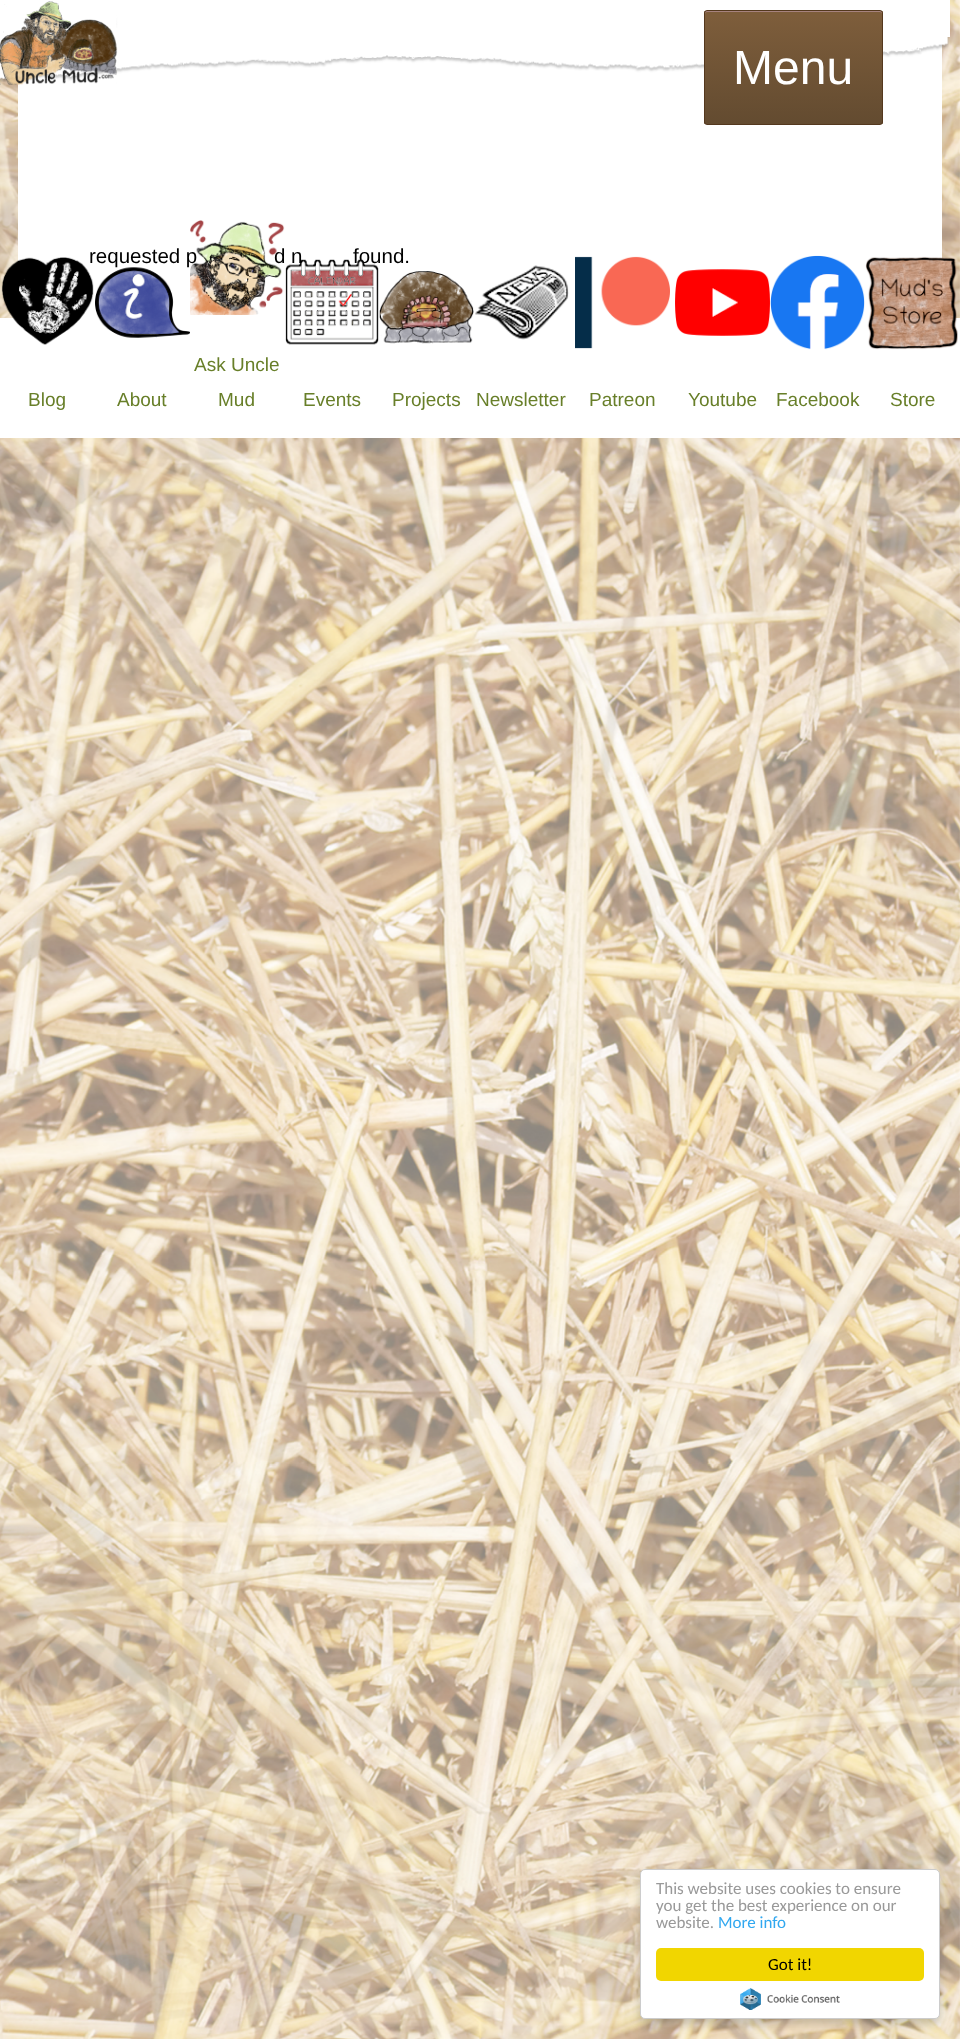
async function draw(canvas) {
  canvas.width = 960;
  canvas.height = 2039;
  const ctx = canvas.getContext('2d');
  ctx.miterLimit = 4;
  ctx.fontKerning = 'normal';
  function label(s, x, y, font, color) {
    ctx.font = font;
    ctx.fillStyle = color;
    ctx.fillText(s, x, y);
  }
  function rect(x, y, w, h, color) {
    ctx.fillStyle = color;
    ctx.fillRect(x, y, w, h);
  }
  function roundedRect(x, y, w, h, r, color) {
    ctx.fillStyle = color;
    ctx.beginPath();
    ctx.roundRect(x, y, w, h, r);
    ctx.fill();
  }
  async function image(src, x, y, w, h) {
    const img = new Image();
    img.src = src;
    await img.decode();
    ctx.drawImage(img, x, y, w, h);
  }
  let gradient, path;

  rect(0, 0, 960, 2039, '#fff');
  await image('assets/img1.png', 0, 0, 960, 2039);
  rect(0, 0, 950, 37, '#fff');
  rect(18, 44, 924, 274, '#fff');
  await image('assets/img3.png', 0, 37, 949, 45);
  await image('assets/img2.png', 0, 1, 118, 84);
  ctx.save();
  ctx.beginPath();
  ctx.roundRect(704, 10, 179, 115, 3);
  ctx.clip();
  gradient = ctx.createLinearGradient(794, 11, 794, 124);
  gradient.addColorStop(0.05, '#7d5d3b');
  gradient.addColorStop(1, '#634b30');
  ctx.fillStyle = gradient;
  ctx.fillRect(704, 11, 179, 113);
  ctx.restore();
  ctx.fillStyle = '#a6827e';
  path = new Path2D('M707 12H880C881 12 882 13 882 14C882 13 882 11 880 11H706C705 12 705 13 705 14C705 13 706 12 707 12Z');
  ctx.fill(path);
  ctx.beginPath();
  ctx.roundRect(704.5, 10.5, 178, 114, 2.5);
  ctx.strokeStyle = '#54381e';
  ctx.stroke();
  label('Menu', 733, 84, '48px Liberation Sans', '#fff');
  label('requested p', 89, 263, '20.5px Liberation Sans', '#000');
  label('d n', 274, 263, '20.5px Liberation Sans', '#000');
  label('found.', 353, 263, '20.5px Liberation Sans', '#000');
  rect(0, 318, 960, 120, '#fff');
  await image('assets/img4.png', 1, 257, 93, 88);
  label('Blog', 28, 406, '19px Liberation Sans', '#687f29');
  await image('assets/img5.png', 95, 267, 95, 71);
  label('About', 117, 406, '19px Liberation Sans', '#687f29');
  await image('assets/img6.png', 190, 220, 95, 95);
  label('Ask Uncle', 194, 371, '19px Liberation Sans', '#687f29');
  label('Mud', 218, 406, '19px Liberation Sans', '#687f29');
  await image('assets/img7.png', 285, 259, 94, 86);
  label('Events', 303, 406, '19px Liberation Sans', '#687f29');
  await image('assets/img8.png', 379, 271, 95, 73);
  label('Projects', 392, 406, '19px Liberation Sans', '#687f29');
  await image('assets/img9.png', 475, 265, 94, 75);
  label('Newsletter', 476, 406, '19px Liberation Sans', '#687f29');
  await image('assets/img10.png', 575, 256, 95, 93);
  label('Patreon', 589, 406, '19px Liberation Sans', '#687f29');
  await image('assets/img11.png', 675, 269, 95, 67);
  label('Youtube', 688, 406, '19px Liberation Sans', '#687f29');
  await image('assets/img12.png', 770, 255, 95, 95);
  label('Facebook', 776, 406, '19px Liberation Sans', '#687f29');
  await image('assets/img13.png', 865, 256, 93, 94);
  label('Store', 890, 406, '19px Liberation Sans', '#687f29');
  ctx.fillStyle = '#00000033';
  ctx.filter = 'blur(5px)';
  ctx.beginPath();
  ctx.roundRect(640, 1874, 300, 150, 5);
  ctx.fill();
  ctx.filter = 'none';
  ctx.fillStyle = '#fff';
  ctx.beginPath();
  ctx.roundRect(640.5, 1869.5, 299, 149, 4.5);
  ctx.fill();
  ctx.strokeStyle = '#ccc';
  ctx.stroke();
  label('This website uses cookies to ensure', 656, 1894, '17px Carlito', '#999');
  label('you get the best experience on our', 656, 1911, '17px Carlito', '#999');
  label('website.', 656, 1928, '17px Carlito', '#999');
  label('More info', 718, 1928, '17px Carlito', '#31a8f0');
  roundedRect(656, 1948, 268, 33, 5, '#f1d600');
  label('Got it!', 768, 1970, '17px Carlito', '#000');
  await image('assets/img14.png', 740, 1988, 100, 22);
}

draw(document.querySelector('canvas'));
